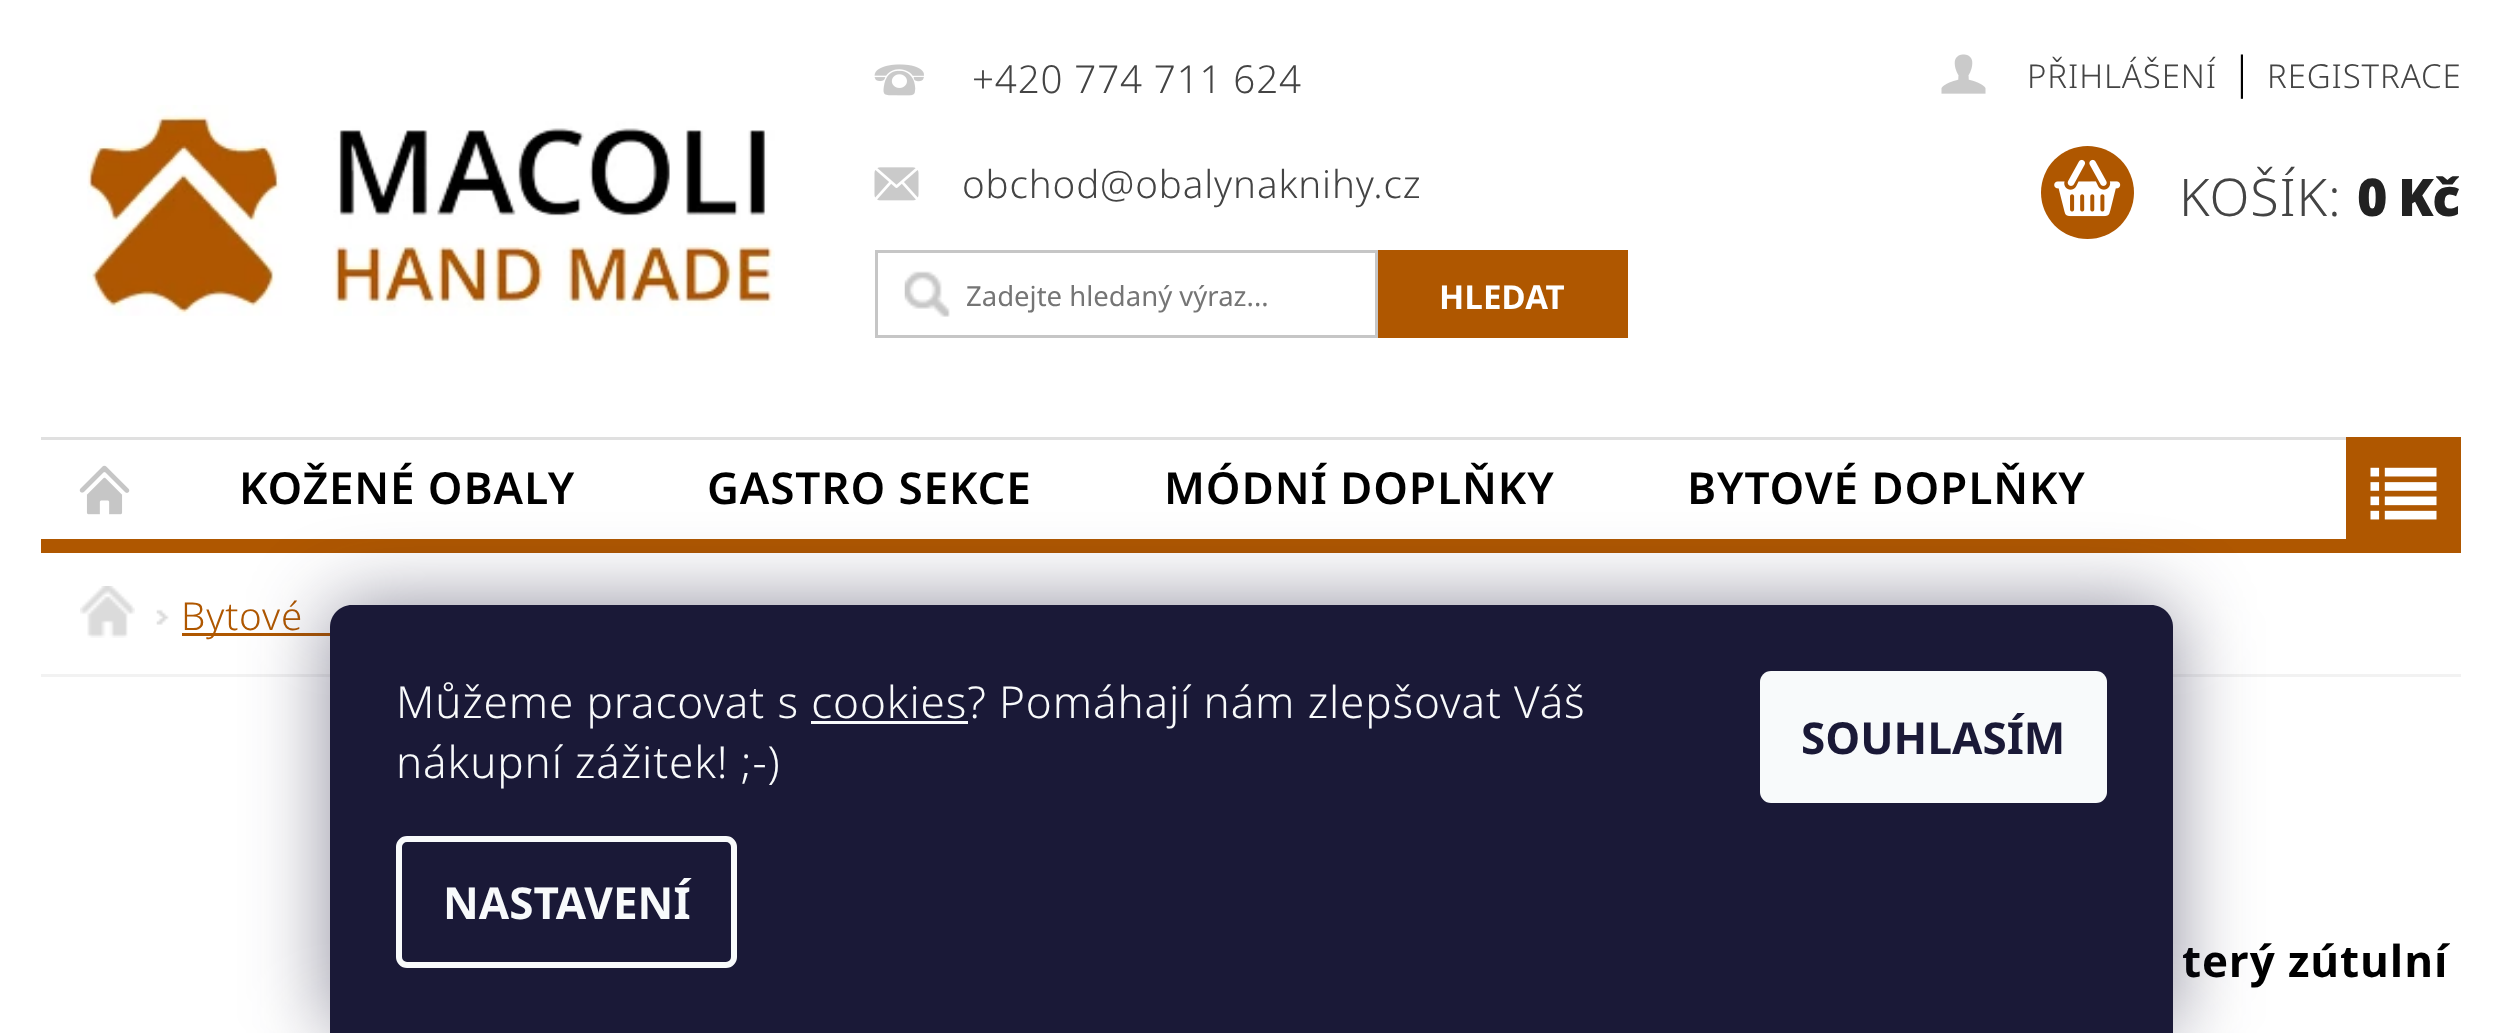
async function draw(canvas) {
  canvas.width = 2502;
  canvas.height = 1033;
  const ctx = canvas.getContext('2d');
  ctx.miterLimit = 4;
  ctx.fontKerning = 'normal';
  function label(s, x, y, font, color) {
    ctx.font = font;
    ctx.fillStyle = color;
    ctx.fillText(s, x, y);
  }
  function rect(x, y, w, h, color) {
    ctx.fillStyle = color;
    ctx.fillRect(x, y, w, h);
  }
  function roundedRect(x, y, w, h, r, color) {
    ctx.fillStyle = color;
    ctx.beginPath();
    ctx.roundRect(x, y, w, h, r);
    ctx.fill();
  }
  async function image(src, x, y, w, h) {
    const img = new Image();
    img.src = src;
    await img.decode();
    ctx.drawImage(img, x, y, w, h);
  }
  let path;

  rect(0, 0, 2502, 1033, '#fff');
  rect(41, 539, 2305, 14, '#af5700');
  await image('assets/img1.png', 87, 105, 688, 211);
  await image('assets/img2.png', 874, 64, 50, 32);
  ctx.letterSpacing = '0.88px';
  label('+420 774 711 624', 972, 93, '300 38.5px Noto Sans', '#444');
  await image('assets/img3.png', 874, 167, 45, 34);
  label('obchod@obalynaknihy.cz', 962, 198, '300 38.5px Noto Sans', '#444');
  await image('assets/img4.png', 904, 271, 46, 46);
  ctx.strokeStyle = '#c6c6c6';
  ctx.lineWidth = 3;
  ctx.strokeRect(876.5, 251.5, 500, 85);
  ctx.letterSpacing = '0px';
  label('Zadejte hledaný výraz...', 966, 306, '27.5px Noto Sans', '#757575');
  rect(1378, 250, 250, 88, '#af5700');
  label('HLEDAT', 1439, 309, 'bold 33px Noto Sans', '#fff');
  await image('assets/img5.png', 1941, 54, 45, 40);
  ctx.letterSpacing = '0.88px';
  label('PŘIHLÁŠENÍ', 2027, 88, '300 33px Noto Sans', '#444');
  label('|', 2230, 88, '300 44px Noto Sans', '#000');
  label('REGISTRACE', 2267, 88, '300 33px Noto Sans', '#444');
  ctx.fillStyle = '#af5700';
  ctx.beginPath();
  ctx.arc(2087.5, 192.5, 46.5, 0, 2 * Math.PI);
  ctx.fill();
  await image('assets/img6.png', 2054, 159, 67, 58);
  label('KOŠÍK:', 2179, 216, '300 52px Noto Sans', '#444');
  ctx.letterSpacing = '-1.5px';
  label('0 Kč', 2357, 216, '900 52px Noto Sans', '#222');
  rect(41, 437, 2305, 3, '#e0e0e0');
  await image('assets/img7.png', 79, 465, 51, 50);
  ctx.letterSpacing = '0.88px';
  label('KOŽENÉ OBALY', 239, 504, '600 44px Noto Sans', '#000');
  label('GASTRO SEKCE', 707, 504, '600 44px Noto Sans', '#000');
  label('MÓDNÍ DOPLŇKY', 1164, 504, '600 44px Noto Sans', '#000');
  label('BYTOVÉ DOPLŇKY', 1687, 504, '600 44px Noto Sans', '#000');
  rect(2346, 437, 115, 116, '#af5700');
  await image('assets/img8.png', 2370, 467, 67, 53);
  rect(41, 674, 2420, 3, '#f2f2f2');
  await image('assets/img9.png', 80, 586, 55, 52);
  await image('assets/img10.png', 156, 609, 13, 16);
  rect(182, 633, 148, 3, '#af5700');
  label('Bytové', 181, 630, '300 38.5px Noto Sans', '#af5700');
  label('terý zútulní', 2182, 977, 'bold 44px Noto Sans', '#000');
  ctx.fillStyle = '#1b193980';
  ctx.filter = 'blur(41px)';
  ctx.beginPath();
  ctx.roundRect(330, 605, 1843, 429, 22);
  ctx.fill();
  ctx.filter = 'none';
  ctx.fillStyle = '#1a1937';
  path = new Path2D('M352 605H2151C2163 605 2173 615 2173 627V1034H330V627C330 615 340 605 352 605Z');
  ctx.fill(path);
  label('Můžeme pracovat s cookies? Pomáhají nám zlepšovat Váš', 396, 718, '300 44px Noto Sans', '#f8fafb');
  rect(811, 721, 157, 3, '#f8fafb');
  label('nákupní zážitek! ;-)', 396, 778, '300 44px Noto Sans', '#f8fafb');
  ctx.beginPath();
  ctx.roundRect(399, 839, 335, 126, 8);
  ctx.strokeStyle = '#f8fafb';
  ctx.lineWidth = 6;
  ctx.stroke();
  ctx.letterSpacing = '0px';
  label('NASTAVENÍ', 443, 919, 'bold 44px Noto Sans', '#f8fafb');
  roundedRect(1760, 671, 347, 132, 11, '#f8fafb');
  label('SOUHLASÍM', 1801, 754, 'bold 44px Noto Sans', '#1a1937');
}

draw(document.querySelector('canvas'));
